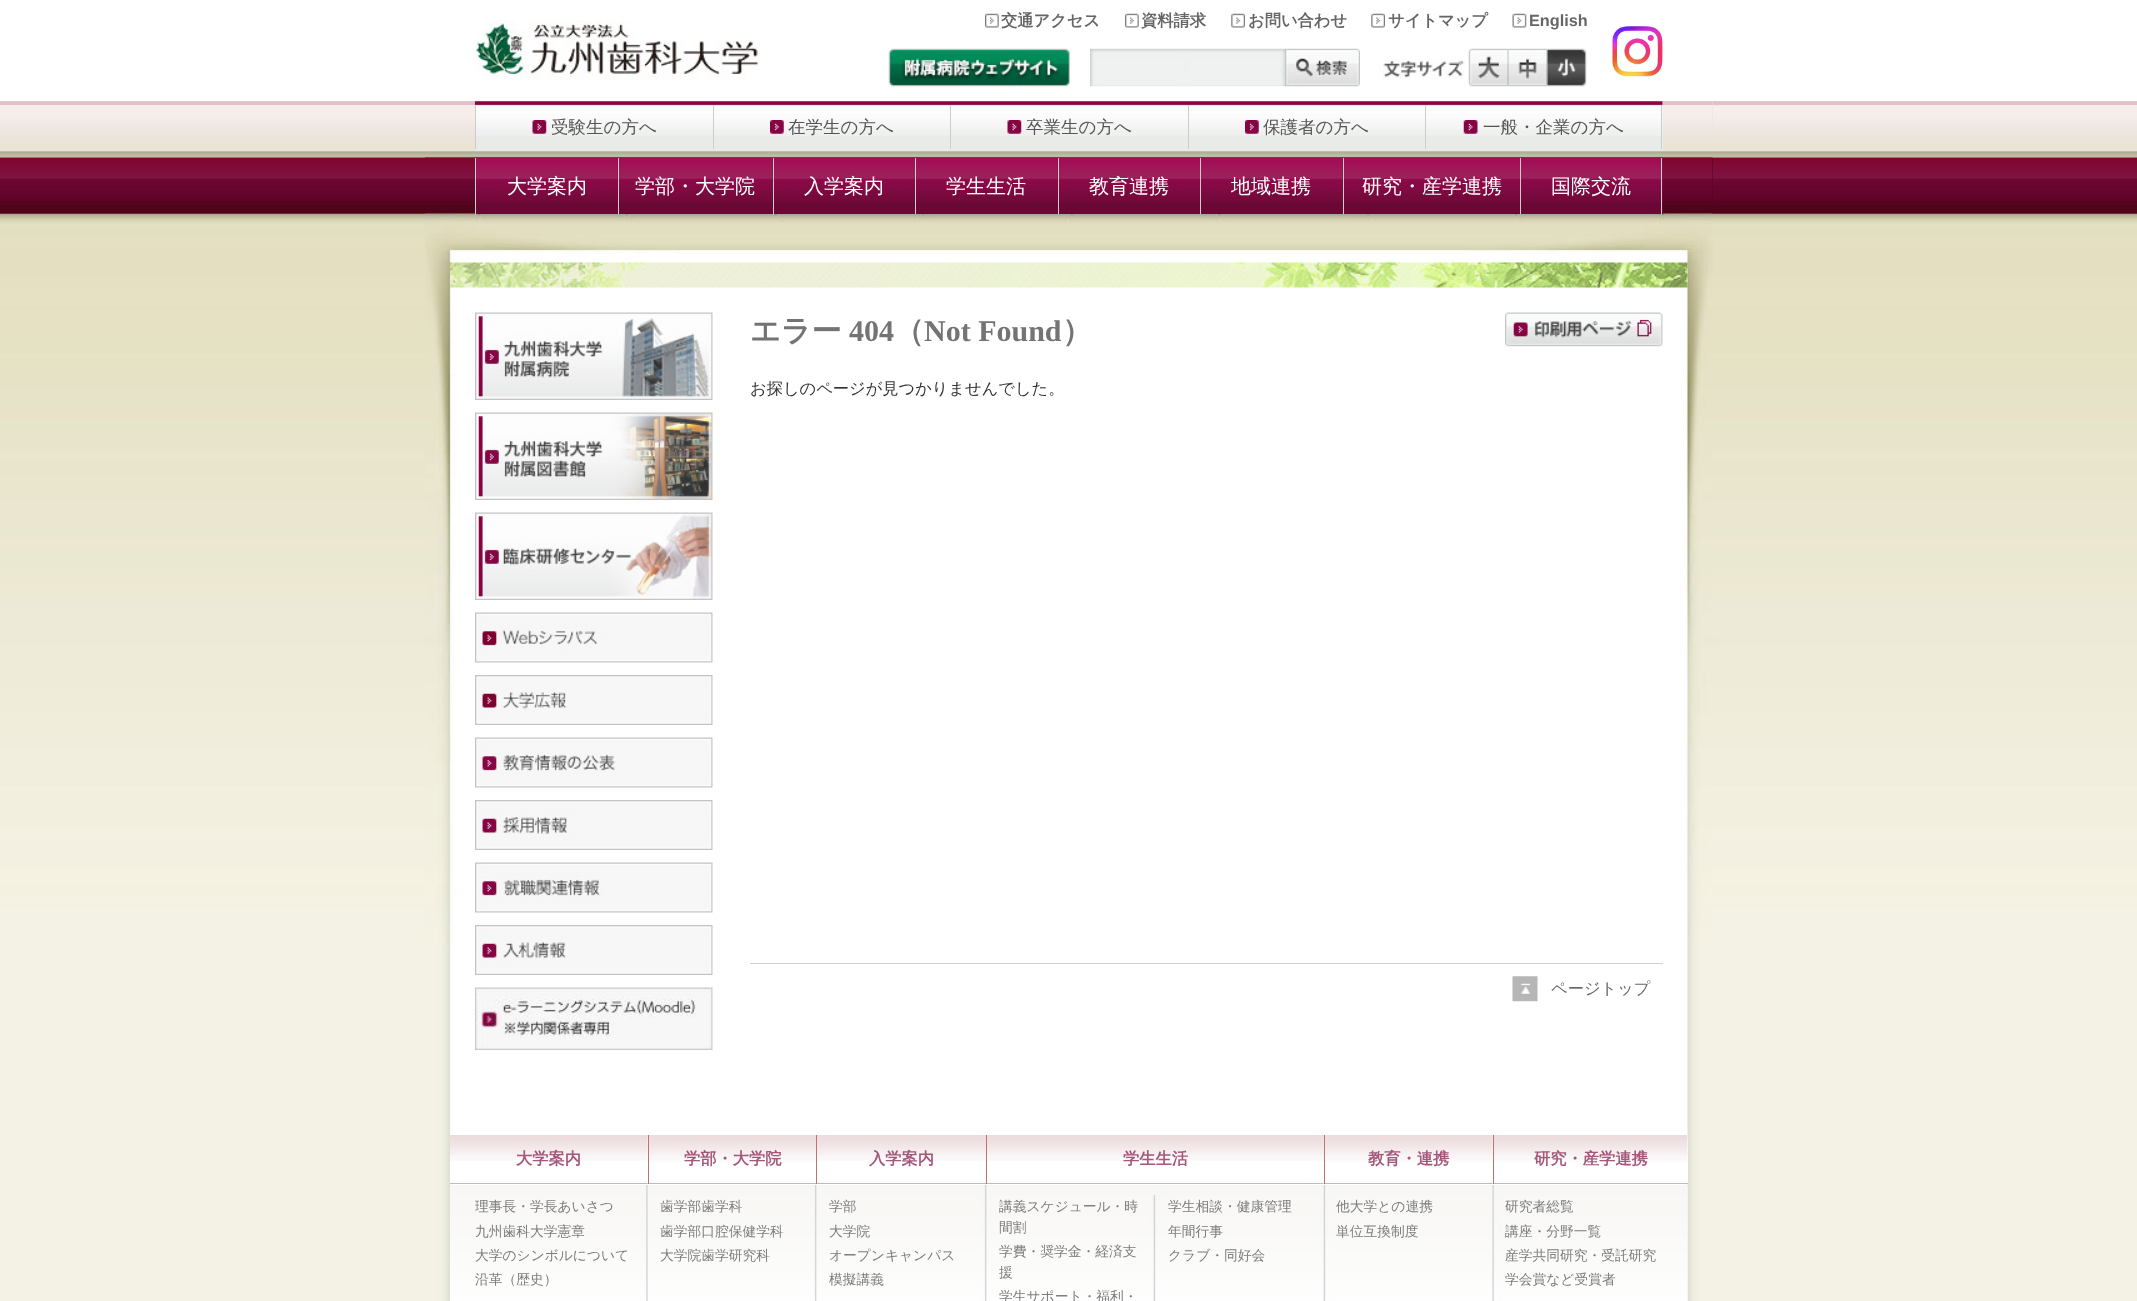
async function draw(canvas) {
  canvas.width = 2137;
  canvas.height = 1301;
  const ctx = canvas.getContext('2d');
  ctx.miterLimit = 4;
  ctx.fontKerning = 'normal';
  function label(s, x, y, font, color) {
    ctx.font = font;
    ctx.fillStyle = color;
    ctx.fillText(s, x, y);
  }
  function rect(x, y, w, h, color) {
    ctx.fillStyle = color;
    ctx.fillRect(x, y, w, h);
  }
  async function image(src, x, y, w, h) {
    const img = new Image();
    img.src = src;
    await img.decode();
    ctx.drawImage(img, x, y, w, h);
  }

  rect(0, 0, 2137, 1301, '#f4f2e5');
  rect(0, 0, 2137, 101, '#fff');
  await image('assets/img1.png', 475, 20, 286, 60);
  await image('assets/img2.png', 985, 13, 14, 15);
  label('交通アクセス', 1001, 26, 'bold 16.25px WenQuanYi Zen Hei', '#666');
  await image('assets/img2.png', 1125, 13, 14, 15);
  label('資料請求', 1141, 26, 'bold 16.25px WenQuanYi Zen Hei', '#666');
  await image('assets/img3.png', 1231, 13, 14, 15);
  label('お問い合わせ', 1248, 26, 'bold 16.25px WenQuanYi Zen Hei', '#666');
  await image('assets/img3.png', 1371, 13, 14, 15);
  label('サイトマップ', 1388, 26, 'bold 16.25px WenQuanYi Zen Hei', '#666');
  await image('assets/img4.png', 1512, 13, 15, 15);
  label('English', 1529, 26, 'bold 16.25px Liberation Sans', '#666');
  await image('assets/img5.png', 888, 48, 182, 39);
  await image('assets/img6.png', 1090, 48, 195, 39);
  await image('assets/img7.png', 1285, 48, 75, 39);
  await image('assets/img8.png', 1383, 59, 83, 20);
  await image('assets/img9.png', 1468, 48, 41, 39);
  await image('assets/img10.png', 1508, 48, 40, 39);
  await image('assets/img11.png', 1547, 48, 40, 39);
  await image('assets/img12.png', 1612, 26, 51, 51);
  await image('assets/img13.png', 0, 151, 2137, 7);
  rect(0, 101, 2137, 50, '#eae4d4');
  await image('assets/img14.png', 0, 101, 2137, 40);
  rect(425, 101, 1288, 40, '#eae4d4');
  await image('assets/img15.png', 425, 101, 1288, 40);
  rect(475, 101, 1188, 50, '#e9ebe9');
  await image('assets/img16.png', 475, 101, 1188, 35);
  rect(475, 105, 1, 44, '#ccc');
  await image('assets/img17.png', 532, 120, 15, 14);
  label('受験生の方へ', 551, 133, '500 17.5px WenQuanYi Zen Hei', '#555');
  rect(713, 105, 1, 44, '#ccc');
  await image('assets/img18.png', 770, 120, 14, 14);
  label('在学生の方へ', 788, 133, '500 17.5px WenQuanYi Zen Hei', '#555');
  rect(950, 105, 1, 44, '#ccc');
  await image('assets/img17.png', 1007, 120, 15, 14);
  label('卒業生の方へ', 1026, 133, '500 17.5px WenQuanYi Zen Hei', '#555');
  rect(1188, 105, 1, 44, '#ccc');
  await image('assets/img18.png', 1245, 120, 14, 14);
  label('保護者の方へ', 1263, 133, '500 17.5px WenQuanYi Zen Hei', '#555');
  rect(1661, 105, 1, 44, '#ccc');
  rect(1425, 105, 1, 44, '#ccc');
  await image('assets/img19.png', 1463, 120, 15, 14);
  label('一般・企業の方へ', 1483, 133, '500 17.5px WenQuanYi Zen Hei', '#555');
  rect(0, 205, 2137, 9, '#50041a');
  await image('assets/img20.png', 0, 157, 2137, 48);
  rect(425, 158, 1288, 47, '#50041a');
  await image('assets/img21.png', 425, 157, 1288, 48);
  await image('assets/img30.png', 0, 213, 2137, 694);
  await image('assets/img31.png', 425, 213, 1288, 1088);
  rect(476, 158, 142, 56, '#690835');
  await image('assets/img22.png', 475, 157, 143, 46);
  rect(475, 158, 1, 56, '#ccc');
  label('大学案内', 507, 193, '500 20px WenQuanYi Zen Hei', '#fff');
  rect(619, 158, 154, 56, '#690835');
  await image('assets/img23.png', 617, 157, 156, 46);
  rect(618, 158, 1, 56, '#ccc');
  label('学部・大学院', 635, 193, '500 20px WenQuanYi Zen Hei', '#fff');
  rect(774, 203, 141, 11, '#690835');
  await image('assets/img24.png', 772, 157, 143, 46);
  rect(773, 158, 1, 56, '#ccc');
  label('入学案内', 804, 193, '500 20px WenQuanYi Zen Hei', '#fff');
  rect(916, 158, 142, 56, '#690835');
  await image('assets/img25.png', 915, 157, 143, 46);
  rect(915, 158, 1, 56, '#ccc');
  label('学生生活', 946, 193, '500 20px WenQuanYi Zen Hei', '#fff');
  rect(1059, 203, 141, 11, '#690835');
  await image('assets/img26.png', 1057, 157, 143, 46);
  rect(1058, 158, 1, 56, '#ccc');
  label('教育連携', 1089, 193, '500 20px WenQuanYi Zen Hei', '#fff');
  rect(1201, 158, 142, 56, '#690835');
  await image('assets/img27.png', 1200, 157, 143, 46);
  rect(1200, 158, 1, 56, '#ccc');
  label('地域連携', 1231, 193, '500 20px WenQuanYi Zen Hei', '#fff');
  rect(1344, 203, 176, 11, '#690835');
  await image('assets/img28.png', 1342, 157, 178, 46);
  rect(1343, 158, 1, 56, '#ccc');
  label('研究・産学連携', 1362, 193, '500 20px WenQuanYi Zen Hei', '#fff');
  rect(1521, 158, 142, 56, '#690835');
  await image('assets/img29.png', 1520, 157, 143, 46);
  rect(1661, 158, 1, 56, '#ccc');
  rect(1520, 158, 1, 56, '#ccc');
  label('国際交流', 1551, 193, '500 20px WenQuanYi Zen Hei', '#fff');
  await image('assets/img32.png', 450, 262, 1238, 26);
  await image('assets/img33.png', 475, 312, 238, 88);
  await image('assets/img34.png', 475, 412, 238, 88);
  await image('assets/img35.png', 475, 512, 238, 88);
  await image('assets/img36.png', 475, 612, 238, 51);
  await image('assets/img37.png', 475, 675, 238, 50);
  await image('assets/img38.png', 475, 737, 238, 51);
  await image('assets/img39.png', 475, 800, 238, 50);
  await image('assets/img40.png', 475, 862, 238, 51);
  await image('assets/img41.png', 475, 925, 238, 50);
  await image('assets/img42.png', 475, 987, 238, 63);
  label('エラー', 750, 341, 'bold 30px WenQuanYi Zen Hei', '#747474');
  label('404', 849, 341, 'bold 30px Liberation Serif', '#747474');
  label('（', 894, 341, 'bold 30px WenQuanYi Zen Hei', '#747474');
  label('Not Found', 924, 341, 'bold 30px Liberation Serif', '#747474');
  label('）', 1062, 341, 'bold 30px WenQuanYi Zen Hei', '#747474');
  label('お探しのページが見つかりませんでした。', 750, 394, '500 16.25px WenQuanYi Zen Hei', '#333');
  await image('assets/img43.png', 1505, 312, 158, 35);
  rect(750, 963, 913, 1, '#d0d0d0');
  await image('assets/img44.png', 1512, 976, 26, 26);
  label('ページトップ', 1551, 994, '500 16.25px WenQuanYi Zen Hei', '#666');
  await image('assets/img45.png', 450, 1185, 1238, 116);
  rect(450, 1135, 3, 48, '#fff');
  await image('assets/img46.png', 450, 1135, 198, 26);
  rect(450, 1183, 198, 1, '#cab5b7');
  label('大学案内', 516, 1164, 'bold 16.25px WenQuanYi Zen Hei', '#a3587b');
  label('理事長・学長あいさつ', 475, 1211, '500 13.75px WenQuanYi Zen Hei', '#7c7c7c');
  label('九州歯科大学憲章', 475, 1236, '500 13.75px WenQuanYi Zen Hei', '#7c7c7c');
  label('大学のシンボルについて', 475, 1260, '500 13.75px WenQuanYi Zen Hei', '#7c7c7c');
  label('沿革（歴史）', 475, 1284, '500 13.75px WenQuanYi Zen Hei', '#7c7c7c');
  await image('assets/img47.png', 647, 1135, 169, 49);
  rect(648, 1183, 676, 1, '#cab5b7');
  rect(648, 1135, 1, 49, '#bb7373');
  label('学部・大学院', 684, 1164, 'bold 16.25px WenQuanYi Zen Hei', '#a3587b');
  label('歯学部歯学科', 660, 1211, '500 13.75px WenQuanYi Zen Hei', '#7c7c7c');
  label('歯学部口腔保健学科', 660, 1236, '500 13.75px WenQuanYi Zen Hei', '#7c7c7c');
  label('大学院歯学研究科', 660, 1260, '500 13.75px WenQuanYi Zen Hei', '#7c7c7c');
  await image('assets/img48.png', 817, 1135, 169, 26);
  rect(816, 1135, 1, 49, '#bb7373');
  label('入学案内', 869, 1164, 'bold 16.25px WenQuanYi Zen Hei', '#a3587b');
  label('学部', 829, 1211, '500 13.75px WenQuanYi Zen Hei', '#7c7c7c');
  label('大学院', 829, 1236, '500 13.75px WenQuanYi Zen Hei', '#7c7c7c');
  label('オープンキャンパス', 829, 1260, '500 13.75px WenQuanYi Zen Hei', '#7c7c7c');
  label('模擬講義', 829, 1284, '500 13.75px WenQuanYi Zen Hei', '#7c7c7c');
  await image('assets/img49.png', 987, 1135, 337, 26);
  rect(986, 1135, 1, 49, '#bb7373');
  label('学生生活', 1123, 1164, 'bold 16.25px WenQuanYi Zen Hei', '#a3587b');
  label('講義スケジュール・時', 999, 1211, '500 13.75px WenQuanYi Zen Hei', '#7c7c7c');
  label('間割', 999, 1232, '500 13.75px WenQuanYi Zen Hei', '#7c7c7c');
  label('学費・奨学金・経済支', 999, 1256, '500 13.75px WenQuanYi Zen Hei', '#7c7c7c');
  label('援', 999, 1277, '500 13.75px WenQuanYi Zen Hei', '#7c7c7c');
  label('学生サポート・福利・', 999, 1301, '500 13.75px WenQuanYi Zen Hei', '#7c7c7c');
  label('学生相談・健康管理', 1168, 1211, '500 13.75px WenQuanYi Zen Hei', '#7c7c7c');
  label('年間行事', 1168, 1236, '500 13.75px WenQuanYi Zen Hei', '#7c7c7c');
  label('クラブ・同好会', 1168, 1260, '500 13.75px WenQuanYi Zen Hei', '#7c7c7c');
  await image('assets/img50.png', 1323, 1135, 170, 49);
  rect(1324, 1183, 169, 1, '#cab5b7');
  rect(1324, 1135, 1, 49, '#bb7373');
  label('教育・連携', 1368, 1164, 'bold 16.25px WenQuanYi Zen Hei', '#a3587b');
  label('他大学との連携', 1336, 1211, '500 13.75px WenQuanYi Zen Hei', '#7c7c7c');
  label('単位互換制度', 1336, 1236, '500 13.75px WenQuanYi Zen Hei', '#7c7c7c');
  rect(1687, 1135, 1, 48, '#fff');
  await image('assets/img51.png', 1492, 1135, 196, 49);
  rect(1493, 1183, 195, 1, '#cab5b7');
  rect(1493, 1135, 1, 49, '#bb7373');
  label('研究・産学連携', 1534, 1164, 'bold 16.25px WenQuanYi Zen Hei', '#a3587b');
  label('研究者総覧', 1505, 1211, '500 13.75px WenQuanYi Zen Hei', '#7c7c7c');
  label('講座・分野一覧', 1505, 1236, '500 13.75px WenQuanYi Zen Hei', '#7c7c7c');
  label('産学共同研究・受託研究', 1505, 1260, '500 13.75px WenQuanYi Zen Hei', '#7c7c7c');
  label('学会賞など受賞者', 1505, 1284, '500 13.75px WenQuanYi Zen Hei', '#7c7c7c');
}

draw(document.querySelector('canvas'));
